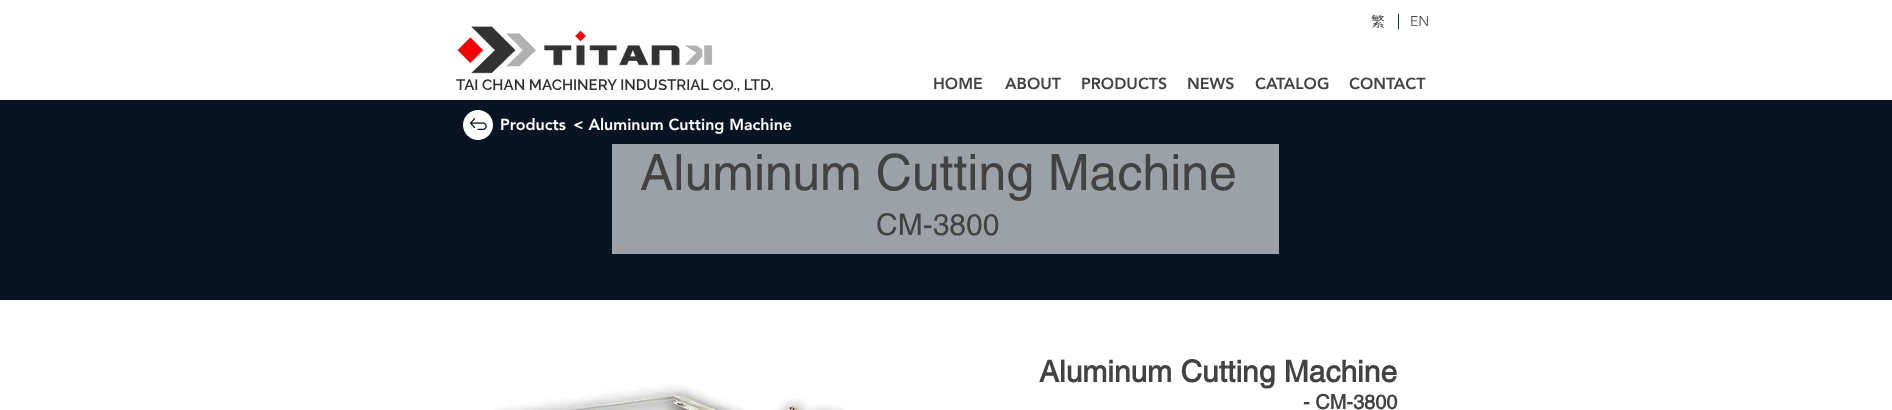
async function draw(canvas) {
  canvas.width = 1892;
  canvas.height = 410;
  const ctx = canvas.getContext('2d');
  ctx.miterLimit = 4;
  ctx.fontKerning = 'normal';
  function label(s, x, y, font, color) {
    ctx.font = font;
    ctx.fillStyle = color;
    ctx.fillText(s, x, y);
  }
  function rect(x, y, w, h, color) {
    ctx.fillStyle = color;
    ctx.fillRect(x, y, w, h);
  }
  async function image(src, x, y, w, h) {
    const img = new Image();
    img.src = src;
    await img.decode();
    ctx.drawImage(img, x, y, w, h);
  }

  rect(0, 0, 1892, 410, '#fff');
  label('繁', 1371, 26, '500 14px WenQuanYi Zen Hei', '#424242');
  rect(1398, 14, 1, 15, '#0a3942');
  label('EN', 1410, 26, '300 14px "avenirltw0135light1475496"', '#424242');
  await image('assets/img1.png', 457, 26, 256, 48);
  label('TAI CHAN MACHINERY INDUSTRIAL CO., LTD.', 456, 90, '600 15px Raleway', '#2f2e2e');
  label('HOME', 933, 89, '900 16px "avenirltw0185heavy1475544"', '#424242');
  label('ABOUT', 1005, 89, '900 16px "avenirltw0185heavy1475544"', '#424242');
  label('PRODUCTS', 1081, 89, '900 16px "avenirltw0185heavy1475544"', '#424242');
  label('NEWS', 1187, 89, '900 16px "avenirltw0185heavy1475544"', '#424242');
  label('CATALOG', 1255, 89, '900 16px "avenirltw0185heavy1475544"', '#424242');
  label('CONTACT', 1349, 89, '900 16px "avenirltw0185heavy1475544"', '#424242');
  rect(0, 100, 1892, 200, '#081423');
  await image('assets/img2.png', 463, 110, 30, 30);
  label('Products', 500, 130, '900 16px "avenirltw0185heavy1475544"', '#fff');
  label('< Aluminum Cutting Machine', 573, 130, '900 16px "avenirltw0185heavy1475544"', '#fff');
  rect(612, 144, 667, 110, '#9ca1a7');
  label('Aluminum Cutting Machine', 640, 190, '50px helvetica', '#424242');
  label('CM-3800', 876, 235, '30px helvetica', '#424242');
  await image('assets/img3.png', 495, 384, 349, 26);
  label('Aluminum Cutting Machine', 1039, 382, 'bold 30px helvetica', '#424242');
  label('- CM-3800', 1303, 409, 'bold 20px helvetica', '#424242');
}

draw(document.querySelector('canvas'));
